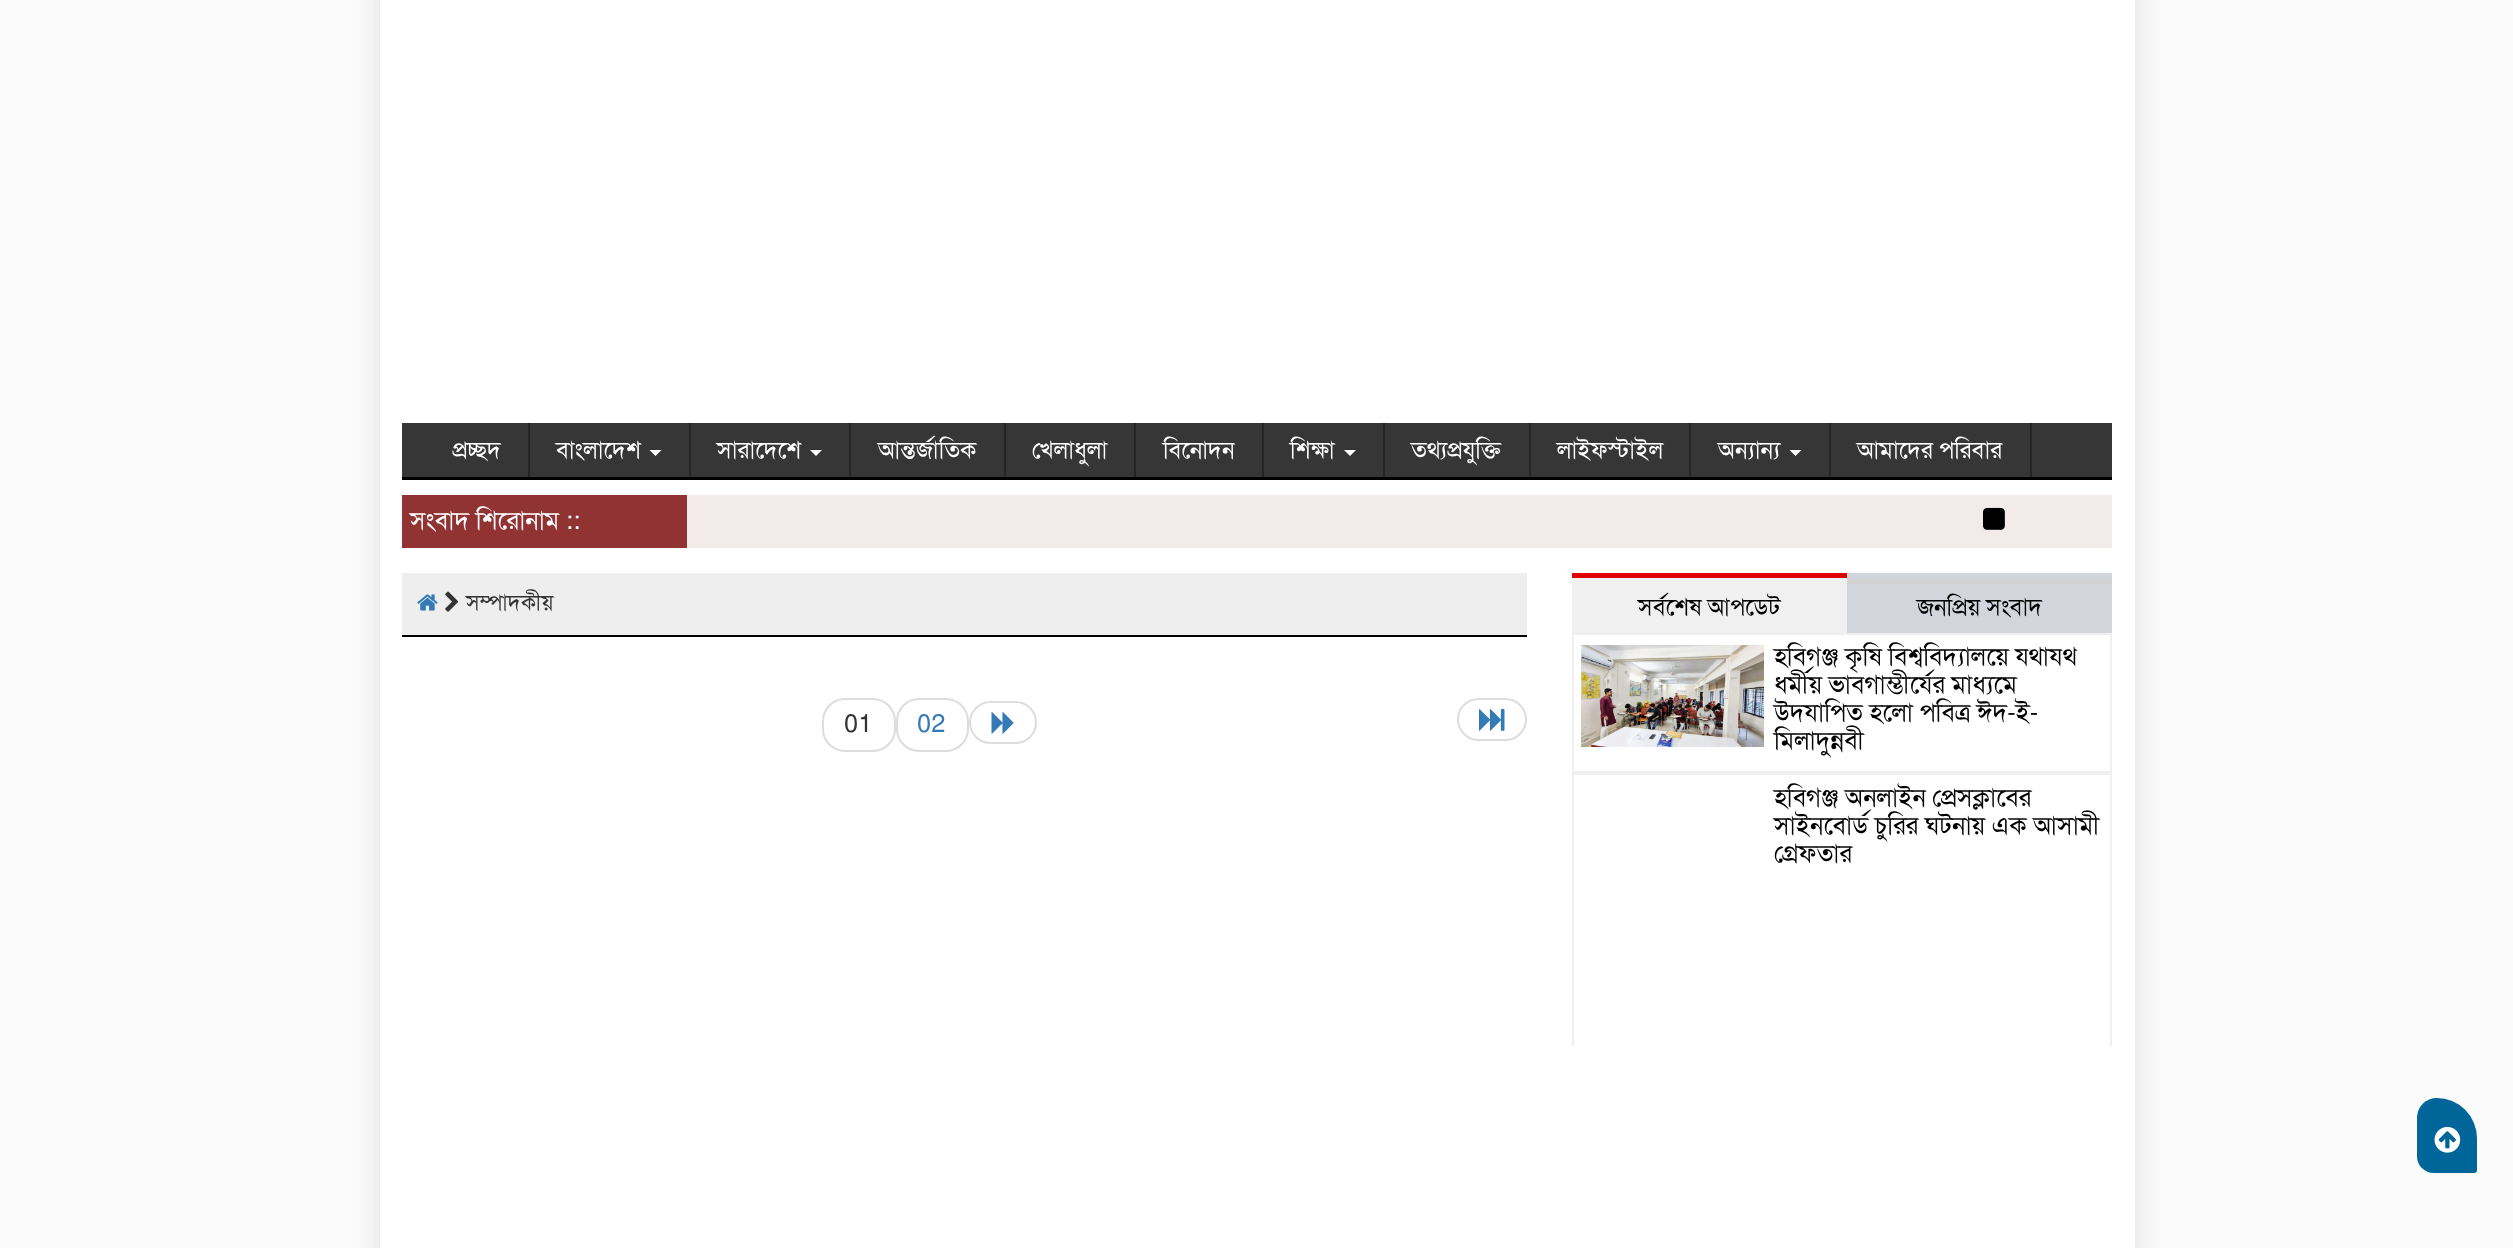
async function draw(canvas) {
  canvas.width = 2513;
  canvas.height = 1248;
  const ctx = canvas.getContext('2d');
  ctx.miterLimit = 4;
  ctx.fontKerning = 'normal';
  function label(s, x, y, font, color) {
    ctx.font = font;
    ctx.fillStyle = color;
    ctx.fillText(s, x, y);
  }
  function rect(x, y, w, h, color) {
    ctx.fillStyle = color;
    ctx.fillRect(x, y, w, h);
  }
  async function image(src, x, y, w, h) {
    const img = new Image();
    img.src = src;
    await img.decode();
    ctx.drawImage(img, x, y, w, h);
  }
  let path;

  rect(0, 0, 2513, 1248, '#fbfbfb');
  ctx.fillStyle = '#ddd';
  ctx.filter = 'blur(15px)';
  ctx.beginPath();
  ctx.rect(380, -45, 1755, 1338);
  ctx.fill();
  ctx.filter = 'none';
  rect(380, 0, 1755, 1248, '#fff');
  rect(402, 423, 1710, 54, '#363636');
  rect(402, 477, 1710, 3, '#000');
  rect(528, 423, 2, 54, '#242424');
  label('প্রচ্ছদ', 452, 458, '24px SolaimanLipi', '#fff');
  rect(689, 423, 2, 54, '#242424');
  label('বাংলাদেশ', 556, 458, '24px SolaimanLipi', '#fff');
  path = new Path2D('M649.5 450H661.5L655.5 456Z');
  ctx.fill(path);
  rect(849, 423, 2, 54, '#242424');
  label('সারাদেশে', 717, 458, '24px SolaimanLipi', '#fff');
  path = new Path2D('M810 450H822L816 456Z');
  ctx.fill(path);
  rect(1004, 423, 2, 54, '#242424');
  label('আন্তর্জাতিক', 878, 458, '24px SolaimanLipi', '#fff');
  rect(1134, 423, 2, 54, '#242424');
  label('খেলাধুলা', 1032, 458, '24px SolaimanLipi', '#fff');
  rect(1262, 423, 2, 54, '#242424');
  label('বিনোদন', 1163, 458, '24px SolaimanLipi', '#fff');
  rect(1383, 423, 2, 54, '#242424');
  label('শিক্ষা', 1290, 458, '24px SolaimanLipi', '#fff');
  path = new Path2D('M1344 450H1356L1350 456Z');
  ctx.fill(path);
  rect(1529, 423, 2, 54, '#242424');
  label('তথ্যপ্রযুক্তি', 1411, 458, '24px SolaimanLipi', '#fff');
  rect(1689, 423, 2, 54, '#242424');
  label('লাইফস্টাইল', 1557, 458, '24px SolaimanLipi', '#fff');
  rect(1829, 423, 2, 54, '#242424');
  label('অন্যান্য', 1718, 458, '24px SolaimanLipi', '#fff');
  path = new Path2D('M1789.5 450H1801.5L1795.5 456Z');
  ctx.fill(path);
  rect(2030, 423, 2, 54, '#242424');
  label('আমাদের পরিবার', 1857, 458, '24px SolaimanLipi', '#fff');
  rect(402, 495, 285, 53, '#913333');
  label('সংবাদ শিরোনাম ::', 410, 529, '25.5px SolaimanLipi', '#fff');
  rect(687, 495, 1425, 53, '#f3eaea');
  await image('assets/img1.png', 1983, 507, 22, 23);
  rect(402, 573, 1125, 62, '#eee');
  rect(402, 635, 1125, 2, '#000');
  await image('assets/img2.png', 417, 594, 21, 17);
  await image('assets/img3.png', 445, 591, 14, 21);
  label('সম্পাদকীয়', 466, 610, '22.5px SolaimanLipi', '#333');
  ctx.beginPath();
  ctx.roundRect(823, 699, 72, 52, 22);
  ctx.strokeStyle = '#ddd';
  ctx.lineWidth = 2;
  ctx.stroke();
  label('01', 844, 732, '25.5px SolaimanLipi', '#333');
  ctx.beginPath();
  ctx.roundRect(897, 699, 71, 52, 22);
  ctx.stroke();
  label('02', 917, 732, '25.5px SolaimanLipi', '#337ab7');
  ctx.beginPath();
  ctx.roundRect(970, 702, 66, 41, 20.5);
  ctx.stroke();
  await image('assets/img4.png', 991, 712, 23, 22);
  ctx.beginPath();
  ctx.roundRect(1458, 699, 68, 41, 20.5);
  ctx.stroke();
  await image('assets/img5.png', 1479, 708, 26, 23);
  rect(1847, 573, 265, 60, '#d2d5db');
  rect(1572, 578, 275, 55, '#f0f0f0');
  rect(1572, 573, 275, 5, '#e10202');
  label('সর্বশেষ আপডেট', 1638, 615, '24px SolaimanLipi', '#000');
  rect(1847, 579, 265, 5, '#d2d2d2');
  label('জনপ্রিয় সংবাদ', 1917, 615, '24px SolaimanLipi', '#000');
  ctx.strokeStyle = '#f0eeee';
  ctx.strokeRect(1573, 634, 538, 138);
  await image('assets/img6.png', 1581, 645, 183, 102);
  label('হবিগঞ্জ কৃষি বিশ্ববিদ্যালয়ে যথাযথ', 1774, 665, '25.5px SolaimanLipi', '#000');
  label('ধর্মীয় ভাবগাম্ভীর্যের মাধ্যমে', 1774, 693, '25.5px SolaimanLipi', '#000');
  label('উদযাপিত হলো পবিত্র ঈদ-ই-', 1774, 721, '25.5px SolaimanLipi', '#000');
  label('মিলাদুন্নবী', 1774, 749, '25.5px SolaimanLipi', '#000');
  ctx.save();
  ctx.beginPath();
  ctx.rect(1572, 633, 540, 413);
  ctx.clip();
  ctx.strokeRect(1573, 774, 538, 448);
  ctx.restore();
  label('হবিগঞ্জ অনলাইন প্রেসক্লাবের', 1774, 806, '25.5px SolaimanLipi', '#000');
  label('সাইনবোর্ড চুরির ঘটনায় এক আসামী', 1774, 834, '25.5px SolaimanLipi', '#000');
  label('গ্রেফতার', 1774, 862, '25.5px SolaimanLipi', '#000');
  ctx.fillStyle = '#069';
  ctx.beginPath();
  ctx.roundRect(2417, 1098, 60, 75, [19.67, 40.33, 2.95, 16.72]);
  ctx.fill();
  await image('assets/img7.png', 2434, 1126, 27, 27);
}

draw(document.querySelector('canvas'));
